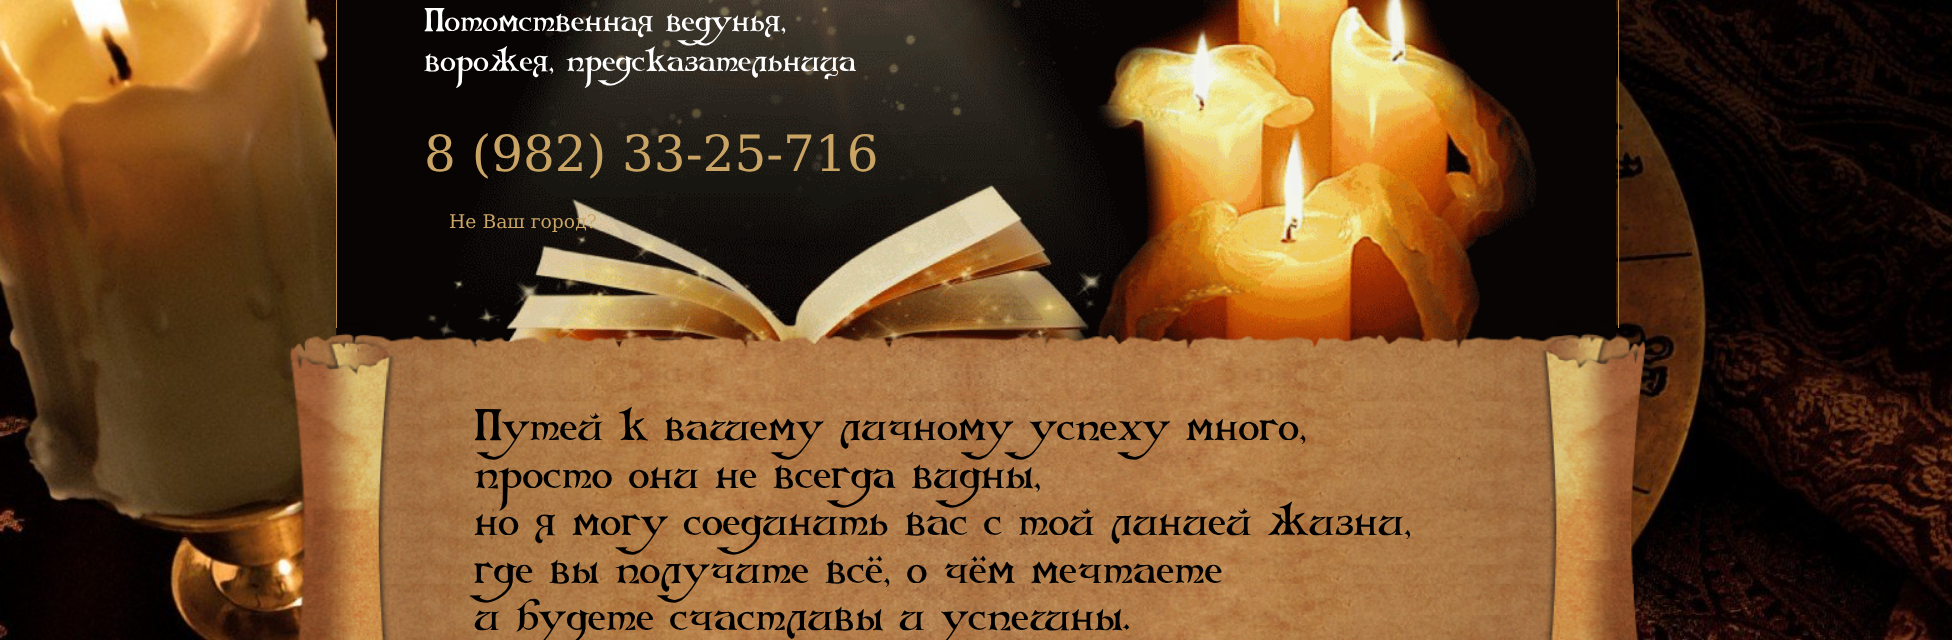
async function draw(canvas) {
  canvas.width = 1952;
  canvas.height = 640;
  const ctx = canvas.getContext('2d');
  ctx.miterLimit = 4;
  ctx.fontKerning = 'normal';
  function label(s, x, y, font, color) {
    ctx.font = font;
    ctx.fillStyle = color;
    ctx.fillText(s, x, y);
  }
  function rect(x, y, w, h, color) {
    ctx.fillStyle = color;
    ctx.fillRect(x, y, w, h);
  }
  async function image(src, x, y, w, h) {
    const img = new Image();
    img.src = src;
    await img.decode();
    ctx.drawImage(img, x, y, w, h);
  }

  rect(0, 0, 1952, 640, '#fff');
  await image('assets/img1.png', 0, 0, 1952, 640);
  await image('assets/img2.png', 336, 0, 1281, 462);
  label('Потомственная ведунья,', 424, 31, '32.5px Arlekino', '#fff');
  label('ворожея, предсказательница', 424, 71, '32.5px Arlekino', '#fff');
  label('8 (982) 33-25-716', 424, 171, '50px DejaVu Serif', '#c9a464');
  label('Не Ваш город?', 449, 228, '18.75px DejaVu Serif', '#c9a464');
  rect(1618, 0, 1, 328, '#b48c46');
  rect(336, 0, 1, 328, '#b48c46');
  await image('assets/img3.png', 290, 321, 1356, 319);
  label('Путей к вашему личному успеху много,', 474, 440, '43.75px Arlekino', '#000');
  label('просто они не всегда видны,', 474, 488, '43.75px Arlekino', '#000');
  label('но я могу соединить вас с той линией жизни,', 474, 535, '43.75px Arlekino', '#000');
  label('где вы получите всё, о чём мечтаете', 474, 583, '43.75px Arlekino', '#000');
  label('и будете счастливы и успешны.', 474, 630, '43.75px Arlekino', '#000');
}

draw(document.querySelector('canvas'));
